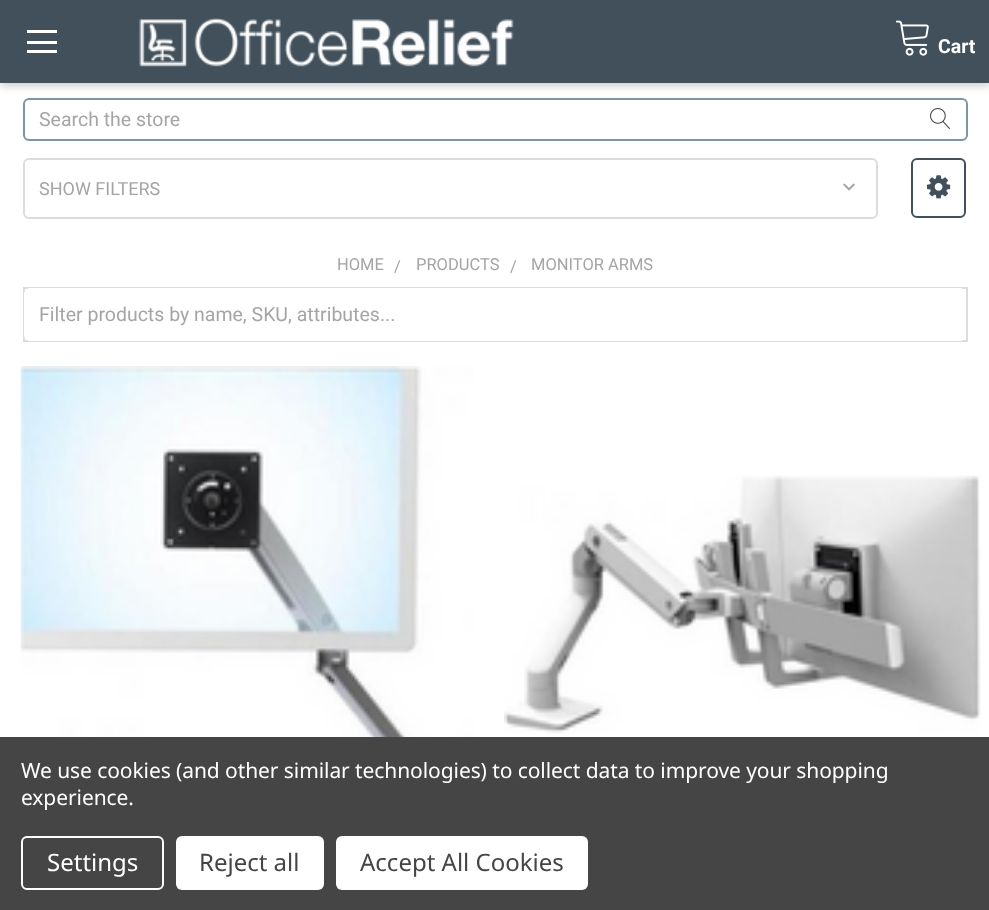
async function draw(canvas) {
  canvas.width = 989;
  canvas.height = 910;
  const ctx = canvas.getContext('2d');
  ctx.miterLimit = 4;
  ctx.fontKerning = 'normal';
  function label(s, x, y, font, color) {
    ctx.font = font;
    ctx.fillStyle = color;
    ctx.fillText(s, x, y);
  }
  function rect(x, y, w, h, color) {
    ctx.fillStyle = color;
    ctx.fillRect(x, y, w, h);
  }
  function roundedRect(x, y, w, h, r, color) {
    ctx.fillStyle = color;
    ctx.beginPath();
    ctx.roundRect(x, y, w, h, r);
    ctx.fill();
  }
  async function image(src, x, y, w, h) {
    const img = new Image();
    img.src = src;
    await img.decode();
    ctx.drawImage(img, x, y, w, h);
  }

  rect(0, 0, 989, 910, '#fff');
  ctx.beginPath();
  ctx.roundRect(24, 99, 943, 41, 5);
  ctx.strokeStyle = '#7e95a4';
  ctx.lineWidth = 2;
  ctx.stroke();
  ctx.fillStyle = '#00000033';
  ctx.filter = 'blur(4px)';
  ctx.beginPath();
  ctx.rect(0, 3, 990, 83);
  ctx.fill();
  ctx.filter = 'none';
  rect(0, 0, 989, 83, '#41505b');
  rect(27, 41, 30, 3, '#fff');
  rect(27, 30, 30, 3, '#fff');
  rect(27, 50, 30, 3, '#fff');
  await image('assets/img1.png', 139, 18, 375, 49);
  await image('assets/img2.png', 896, 20, 33, 36);
  label('Cart', 938, 53, 'bold 19.5px Roboto', '#fff');
  label('Search the store', 39, 126, '19.5px Roboto', '#a5a5a5');
  await image('assets/img3.png', 930, 108, 20, 21);
  ctx.beginPath();
  ctx.roundRect(24, 159, 853, 59, 5);
  ctx.strokeStyle = '#dcdcdc';
  ctx.stroke();
  label('SHOW FILTERS', 39, 195, '18px Roboto', '#a5a5a5');
  await image('assets/img4.png', 843, 183, 12, 8);
  ctx.beginPath();
  ctx.roundRect(912, 159, 53, 58, 5);
  ctx.strokeStyle = '#41505b';
  ctx.stroke();
  await image('assets/img5.png', 927, 175, 24, 24);
  label('HOME', 337, 270, '16.5px Roboto', '#a5a5a5');
  label('/', 394, 272, '16.5px Roboto', '#a5a5a5');
  label('PRODUCTS', 416, 270, '16.5px Roboto', '#a5a5a5');
  label('/', 510, 272, '16.5px Roboto', '#a5a5a5');
  label('MONITOR ARMS', 531, 270, '16.5px Roboto', '#a5a5a5');
  ctx.strokeStyle = '#dcdcdc';
  ctx.strokeRect(24, 288, 943, 53);
  roundedRect(24, 288, 942, 53, 6, '#fff');
  label('Filter products by name, SKU, attributes...', 39, 321, '19.5px Roboto', '#a5a5a5');
  await image('assets/img6.png', 20, 366, 455, 371);
  await image('assets/img7.png', 504, 475, 477, 259);
  rect(0, 737, 989, 173, '#454545');
  ctx.letterSpacing = '-0.08px';
  label('We use cookies (and other similar technologies) to collect data to improve your shopping', 21, 778, '21px Noto Sans', '#fff');
  label('experience.', 21, 805, '21px Noto Sans', '#fff');
  ctx.beginPath();
  ctx.roundRect(22, 837, 141, 52, 5);
  ctx.strokeStyle = '#fff';
  ctx.stroke();
  ctx.letterSpacing = '0px';
  label('Settings', 47, 871, '24px Noto Sans', '#fff');
  roundedRect(176, 836, 148, 54, 6, '#fff');
  label('Reject all', 199, 871, '24px Noto Sans', '#454545');
  roundedRect(336, 836, 252, 54, 6, '#fff');
  label('Accept All Cookies', 360, 871, '24px Noto Sans', '#454545');
}

draw(document.querySelector('canvas'));
